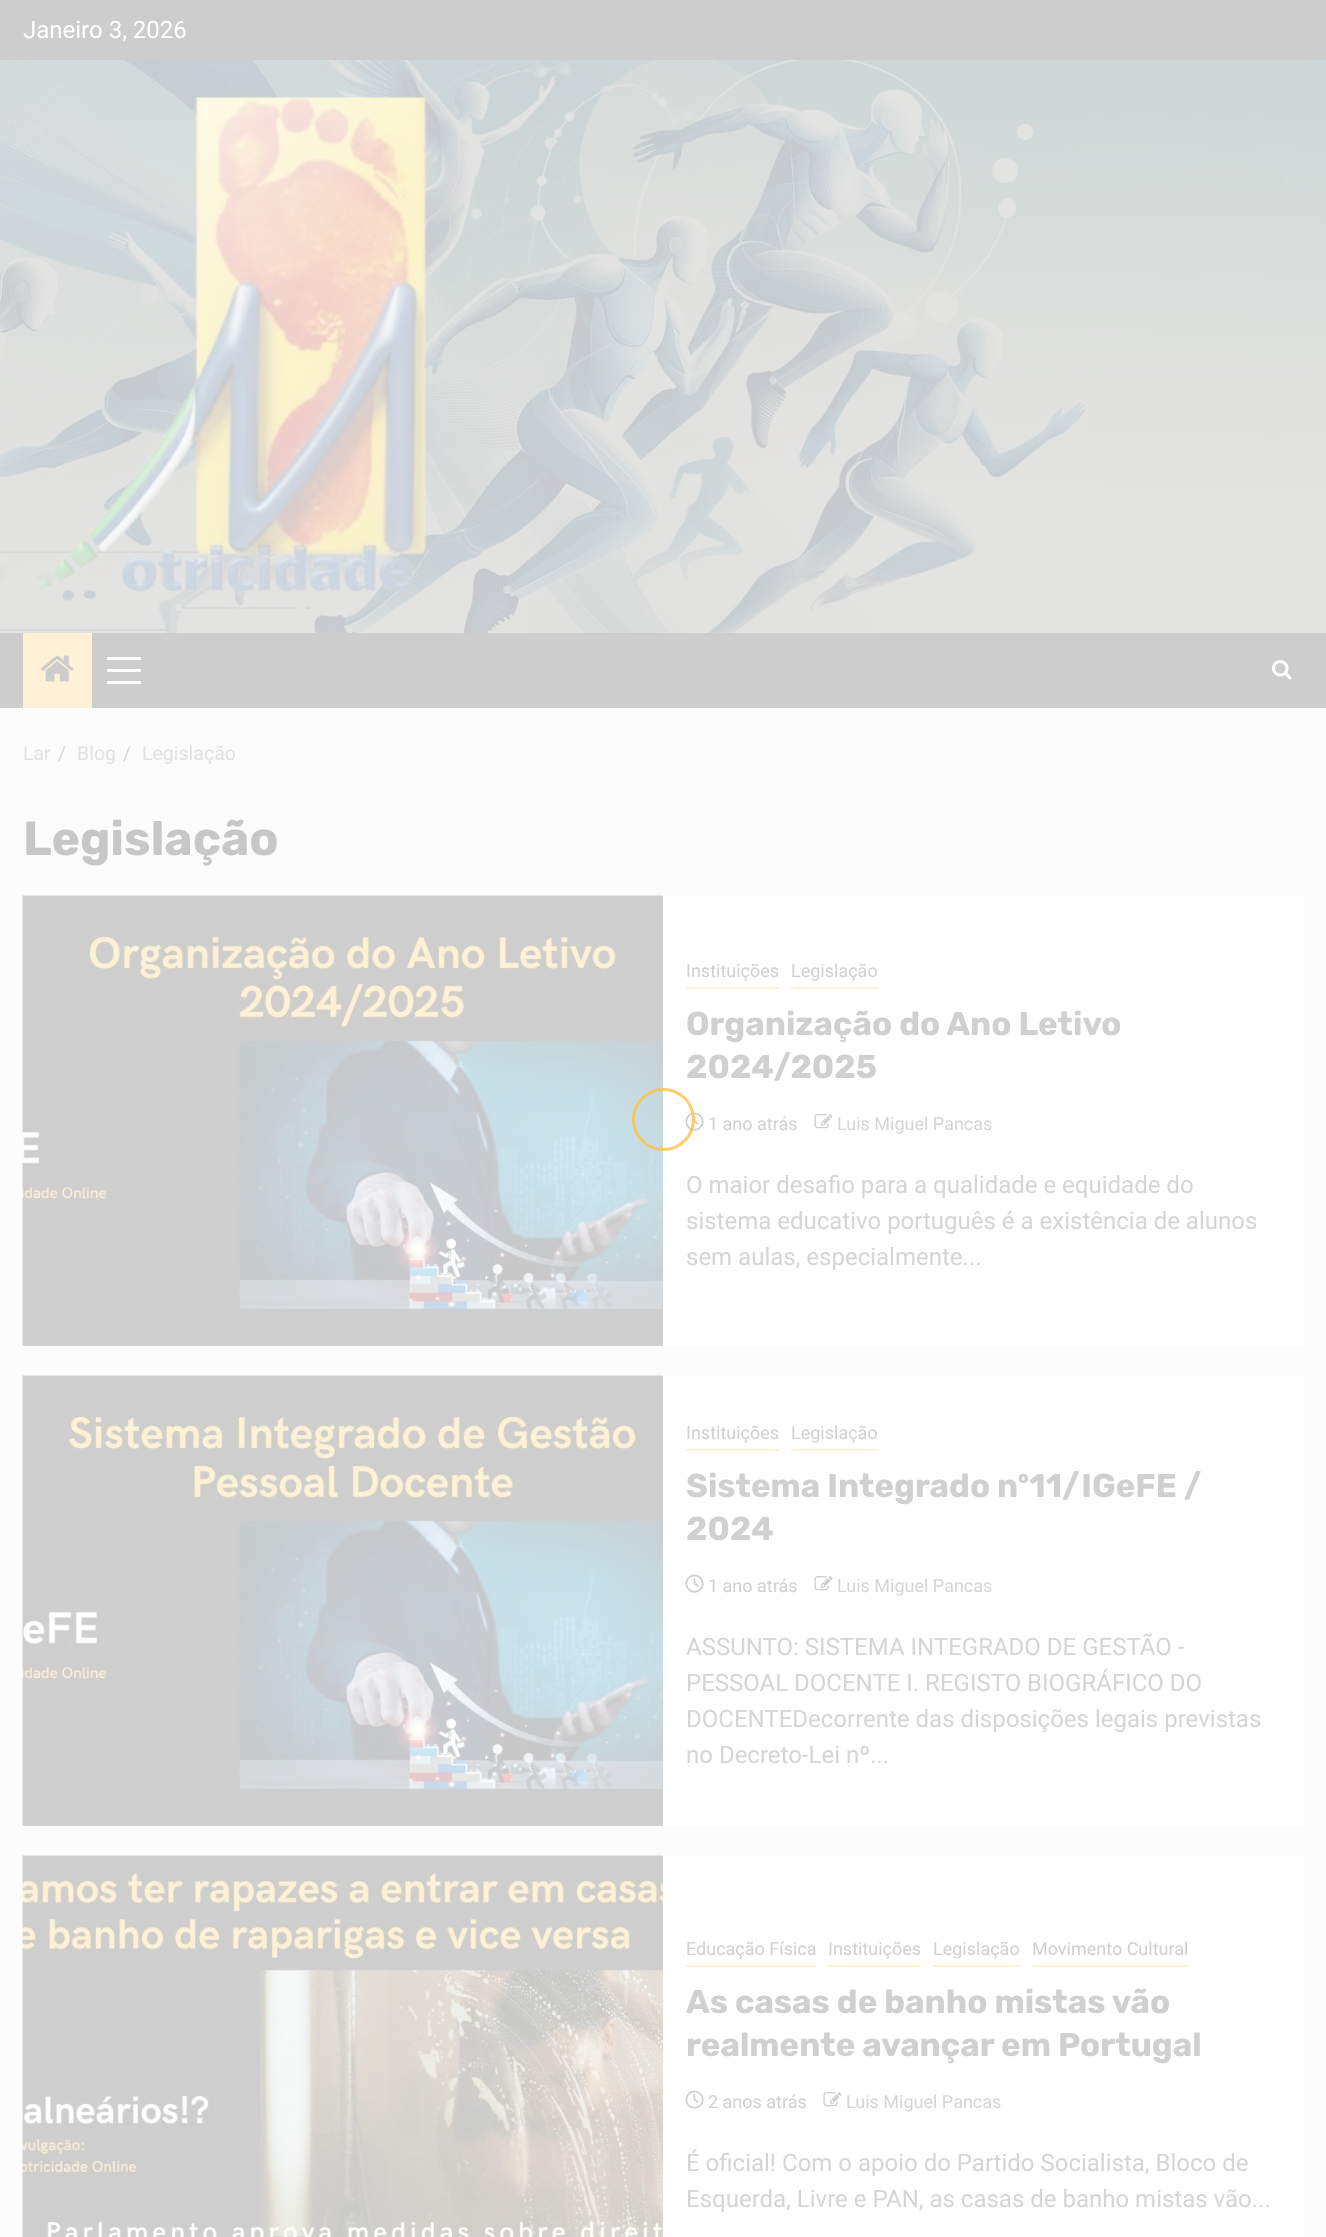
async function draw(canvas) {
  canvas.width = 1326;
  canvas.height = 2237;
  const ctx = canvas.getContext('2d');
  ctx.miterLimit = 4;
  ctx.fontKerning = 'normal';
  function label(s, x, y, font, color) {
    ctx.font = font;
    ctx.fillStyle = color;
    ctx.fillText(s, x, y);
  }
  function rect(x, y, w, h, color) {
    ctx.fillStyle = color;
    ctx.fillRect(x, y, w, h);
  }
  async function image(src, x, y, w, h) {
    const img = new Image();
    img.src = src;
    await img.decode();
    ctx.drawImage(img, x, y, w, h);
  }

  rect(0, 0, 1326, 2237, '#fcfcfc');
  rect(0, 0, 1326, 60, '#cdcdcd');
  label('Janeiro 3, 2026', 23, 38, '24px Roboto', '#fff');
  await image('assets/img1.png', 0, 60, 1326, 573);
  await image('assets/img2.png', 40, 97, 387, 496);
  rect(0, 633, 1326, 75, '#cdcdcd');
  rect(23, 633, 69, 75, '#fff1d5');
  await image('assets/img3.png', 41, 655, 33, 27);
  rect(107, 669, 34, 3, '#fff');
  rect(107, 657, 34, 3, '#fff');
  rect(107, 681, 34, 3, '#fff');
  await image('assets/img4.png', 1272, 660, 20, 20);
  label('Lar', 23, 760, '19.5px Roboto', '#e1e1e1');
  label('/', 58, 760, '19.5px Roboto', '#d3d5d6');
  label('Blog', 77, 760, '19.5px Roboto', '#e1e1e1');
  label('/', 123, 760, '19.5px Roboto', '#d3d5d6');
  label('Legislação', 142, 760, '19.5px Roboto', '#e1e1e1');
  label('Legislação', 23, 855, 'bold 48px Rubik', '#c7c7c7');
  rect(663, 896, 641, 450, '#fff');
  rect(23, 1345, 640, 1, '#d5d5d5');
  await image('assets/img5.png', 22, 895, 641, 451);
  rect(686, 987, 93, 2, '#fff1d5');
  label('Instituições', 686, 977, '18px Roboto', '#d0d0d0');
  rect(791, 987, 87, 2, '#fff1d5');
  label('Legislação', 791, 977, '18px Roboto', '#d0d0d0');
  label('Organização do Ano Letivo', 686, 1035, 'bold 33px Rubik', '#d0d0d0');
  label('2024/2025', 686, 1078, 'bold 33px Rubik', '#d0d0d0');
  await image('assets/img6.png', 685, 1112, 19, 19);
  label('1 ano atrás', 708, 1130, '18px Roboto', '#d0d0d0');
  await image('assets/img7.png', 814, 1114, 19, 15);
  label('Luis Miguel Pancas', 837, 1130, '18px Roboto', '#d3d5d6');
  label('O maior desafio para a qualidade e equidade do', 686, 1193, '24px Roboto', '#d3d5d6');
  label('sistema educativo português é a existência de alunos', 686, 1229, '24px Roboto', '#d3d5d6');
  label('sem aulas, especialmente...', 686, 1265, '24px Roboto', '#d3d5d6');
  rect(663, 1376, 641, 450, '#fff');
  rect(23, 1825, 640, 1, '#d5d5d5');
  await image('assets/img8.png', 22, 1375, 641, 451);
  rect(686, 1449, 93, 2, '#fff1d5');
  label('Instituições', 686, 1439, '18px Roboto', '#d0d0d0');
  rect(791, 1449, 87, 2, '#fff1d5');
  label('Legislação', 791, 1439, '18px Roboto', '#d0d0d0');
  label('Sistema Integrado nº11/IGeFE /', 686, 1497, 'bold 33px Rubik', '#d0d0d0');
  label('2024', 686, 1540, 'bold 33px Rubik', '#d0d0d0');
  await image('assets/img6.png', 685, 1574, 19, 19);
  label('1 ano atrás', 708, 1592, '18px Roboto', '#d0d0d0');
  await image('assets/img7.png', 814, 1576, 19, 15);
  label('Luis Miguel Pancas', 837, 1592, '18px Roboto', '#d3d5d6');
  label('ASSUNTO: SISTEMA INTEGRADO DE GESTÃO -', 686, 1655, '24px Roboto', '#d3d5d6');
  label('PESSOAL DOCENTE I. REGISTO BIOGRÁFICO DO', 686, 1691, '24px Roboto', '#d3d5d6');
  label('DOCENTEDecorrente das disposições legais previstas', 686, 1727, '24px Roboto', '#d3d5d6');
  label('no Decreto-Lei nº...', 686, 1763, '24px Roboto', '#d3d5d6');
  rect(663, 1856, 641, 381, '#fff');
  await image('assets/img9.png', 22, 1855, 641, 382);
  rect(686, 1965, 130, 2, '#fff1d5');
  label('Educação Física', 686, 1955, '18px Roboto', '#d0d0d0');
  rect(828, 1965, 93, 2, '#fff1d5');
  label('Instituições', 828, 1955, '18px Roboto', '#d0d0d0');
  rect(933, 1965, 87, 2, '#fff1d5');
  label('Legislação', 933, 1955, '18px Roboto', '#d0d0d0');
  rect(1032, 1965, 156, 2, '#fff1d5');
  label('Movimento Cultural', 1032, 1955, '18px Roboto', '#d0d0d0');
  label('As casas de banho mistas vão', 686, 2013, 'bold 33px Rubik', '#d0d0d0');
  label('realmente avançar em Portugal', 686, 2056, 'bold 33px Rubik', '#d0d0d0');
  await image('assets/img6.png', 685, 2090, 19, 19);
  label('2 anos atrás', 708, 2108, '18px Roboto', '#d0d0d0');
  await image('assets/img7.png', 823, 2092, 19, 15);
  label('Luis Miguel Pancas', 846, 2108, '18px Roboto', '#d3d5d6');
  label('É oficial! Com o apoio do Partido Socialista, Bloco de', 686, 2171, '24px Roboto', '#d3d5d6');
  label('Esquerda, Livre e PAN, as casas de banho mistas vão...', 686, 2207, '24px Roboto', '#d3d5d6');
  ctx.beginPath();
  ctx.arc(663.5, 1119.5, 30, 0, 2 * Math.PI);
  ctx.strokeStyle = '#ffbf3fc7';
  ctx.lineWidth = 3;
  ctx.stroke();
}

draw(document.querySelector('canvas'));
